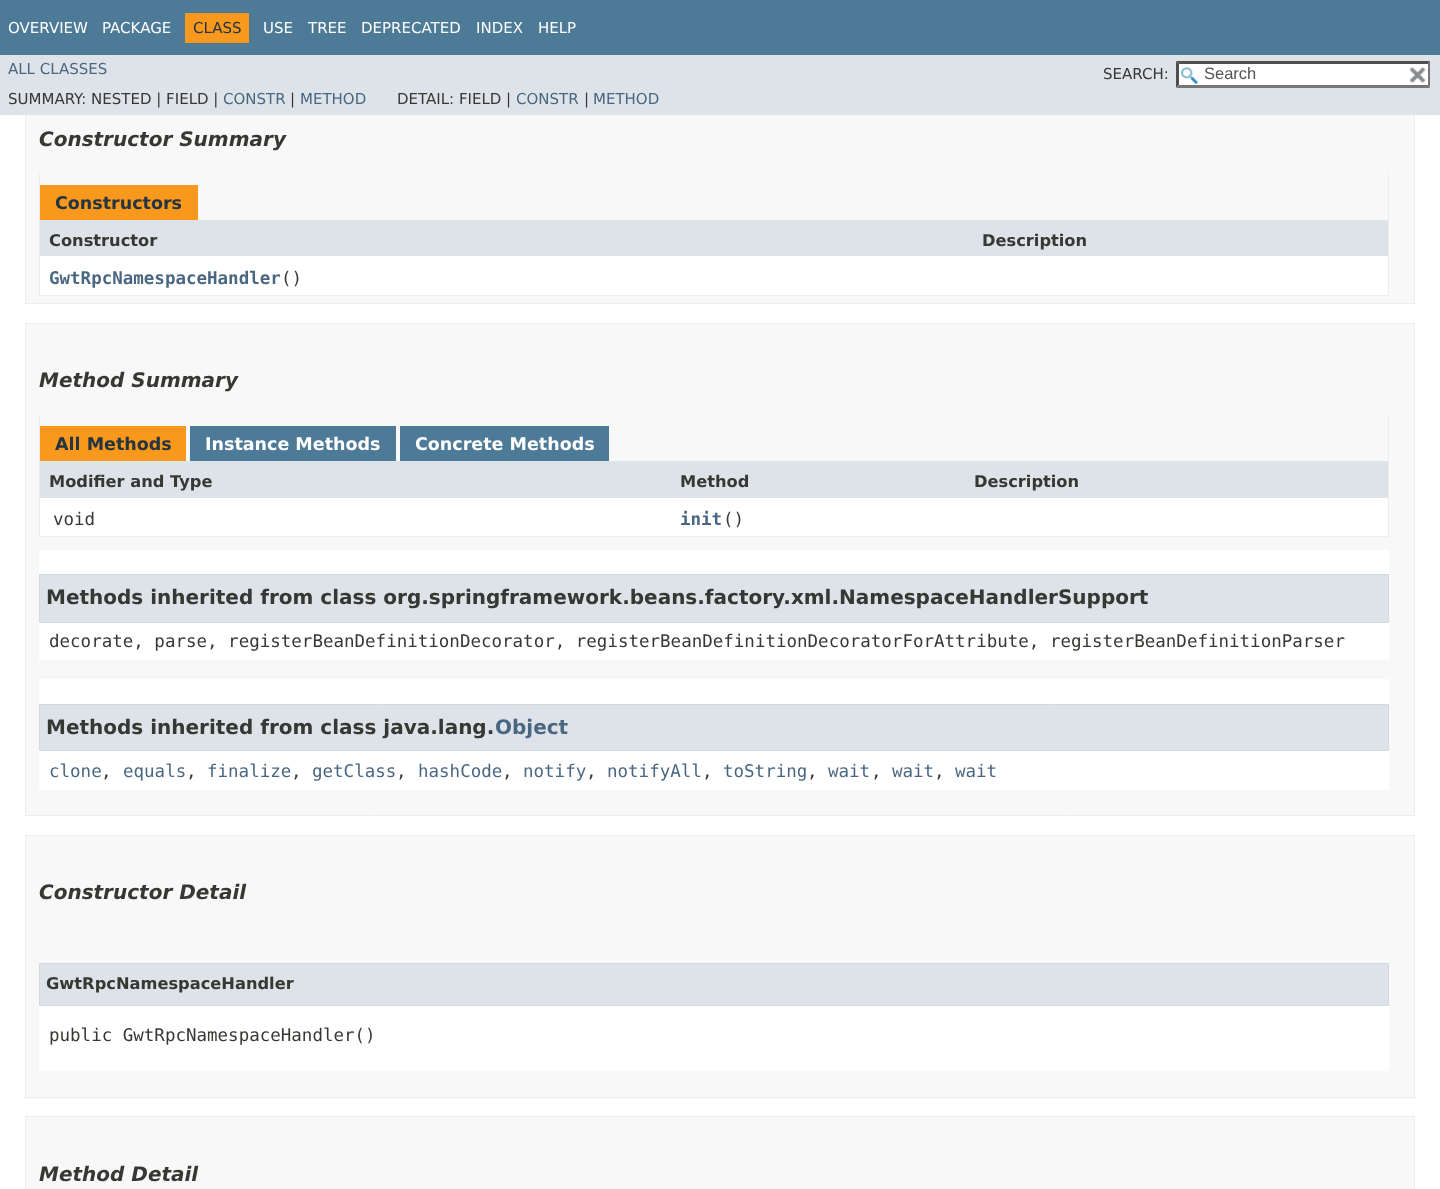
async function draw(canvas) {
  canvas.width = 1440;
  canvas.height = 1189;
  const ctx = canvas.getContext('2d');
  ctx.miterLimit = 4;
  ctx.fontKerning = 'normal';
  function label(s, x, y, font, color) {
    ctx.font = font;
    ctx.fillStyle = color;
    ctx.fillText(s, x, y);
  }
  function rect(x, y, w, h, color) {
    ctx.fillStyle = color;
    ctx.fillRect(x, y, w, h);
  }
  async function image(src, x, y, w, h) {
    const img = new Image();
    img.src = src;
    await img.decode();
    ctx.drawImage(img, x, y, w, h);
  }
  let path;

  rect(0, 0, 1440, 1189, '#fff');
  rect(0, 0, 1440, 55, '#4d7a97');
  label('OVERVIEW', 8, 33, '15px DejaVu Sans', '#fff');
  label('PACKAGE', 102, 33, '15px DejaVu Sans', '#fff');
  rect(185, 13, 64, 30, '#f8981d');
  label('CLASS', 193, 33, '15px DejaVu Sans', '#253441');
  label('USE', 263, 33, '15px DejaVu Sans', '#fff');
  label('TREE', 308, 33, '15px DejaVu Sans', '#fff');
  label('DEPRECATED', 361, 33, '15px DejaVu Sans', '#fff');
  label('INDEX', 476, 33, '15px DejaVu Sans', '#fff');
  label('HELP', 538, 33, '15px DejaVu Sans', '#fff');
  rect(26, 115, 1388, 188, '#f8f8f8');
  ctx.strokeStyle = '#ededed';
  ctx.strokeRect(25.5, 81.5, 1389, 222);
  rect(0, 55, 1440, 60, '#dee3e9');
  label('ALL CLASSES', 8, 74, '15px DejaVu Sans', '#4a6782');
  label('SEARCH:', 1103, 79, '15px DejaVu Sans', '#353833');
  rect(1176, 61, 254, 27, '#fff');
  await image('assets/img1.png', 1181, 67, 17, 17);
  ctx.fillStyle = '#4f4f4f';
  path = new Path2D('M1176 61H1430L1428 64H1179Z');
  ctx.fill(path);
  ctx.fillStyle = '#767676';
  path = new Path2D('M1430 61V87.5L1427.5 85V64Z');
  ctx.fill(path);
  path = new Path2D('M1430 88H1176L1179 85H1428Z');
  ctx.fill(path);
  ctx.fillStyle = '#4f4f4f';
  path = new Path2D('M1176 87.5V61L1179 64V85Z');
  ctx.fill(path);
  label('Search', 1204, 79, '16.5px Liberation Sans', '#545454');
  rect(1427, 64, 1, 21, '#fff');
  await image('assets/img2.png', 1409, 67, 17, 16);
  label('SUMMARY: NESTED | FIELD |', 8, 104, '15px DejaVu Sans', '#353833');
  label('CONSTR', 223, 104, '15px DejaVu Sans', '#4a6782');
  label('|', 290, 104, '15px DejaVu Sans', '#353833');
  label('METHOD', 300, 104, '15px DejaVu Sans', '#4a6782');
  label('DETAIL: FIELD |', 397, 104, '15px DejaVu Sans', '#353833');
  label('CONSTR', 516, 104, '15px DejaVu Sans', '#4a6782');
  label('|', 584, 104, '15px DejaVu Sans', '#353833');
  label('METHOD', 593, 104, '15px DejaVu Sans', '#4a6782');
  label('Constructor Summary', 39, 146, 'italic bold 20px DejaVu Sans', '#353833');
  rect(1388, 173, 1, 123, '#eee');
  rect(39, 295, 1350, 1, '#eee');
  rect(39, 173, 1, 123, '#eee');
  rect(40, 185, 158, 35, '#f8981d');
  label('Constructors', 55, 209, 'bold 17.5px DejaVu Sans', '#253441');
  rect(40, 220, 1348, 36, '#dee3e9');
  label('Constructor', 49, 246, 'bold 16.25px DejaVu Sans', '#353833');
  label('Description', 982, 246, 'bold 16.25px DejaVu Sans', '#353833');
  rect(40, 256, 1348, 39, '#fff');
  label('GwtRpcNamespaceHandler', 49, 284, 'bold 17.5px DejaVu Sans Mono', '#4a6782');
  label('()', 281, 284, '17.5px DejaVu Sans Mono', '#353833');
  ctx.fillStyle = '#f8f8f8';
  ctx.beginPath();
  ctx.rect(25.5, 323.5, 1389, 492);
  ctx.fill();
  ctx.stroke();
  label('Method Summary', 39, 387, 'italic bold 20px DejaVu Sans', '#353833');
  rect(1388, 414, 1, 124, '#eee');
  rect(39, 536, 1350, 1, '#eee');
  rect(39, 414, 1, 124, '#eee');
  rect(40, 426, 146, 35, '#f8981d');
  label('All Methods', 55, 450, 'bold 17.5px DejaVu Sans', '#253441');
  rect(190, 426, 206, 35, '#4d7a97');
  label('Instance Methods', 205, 450, 'bold 17.5px DejaVu Sans', '#fff');
  rect(400, 426, 209, 35, '#4d7a97');
  label('Concrete Methods', 415, 450, 'bold 17.5px DejaVu Sans', '#fff');
  rect(40, 461, 1348, 37, '#dee3e9');
  label('Modifier and Type', 49, 487, 'bold 16.25px DejaVu Sans', '#353833');
  label('Method', 680, 487, 'bold 16.25px DejaVu Sans', '#353833');
  label('Description', 974, 487, 'bold 16.25px DejaVu Sans', '#353833');
  rect(40, 498, 1348, 38, '#fff');
  label('void', 53, 525, '17.5px DejaVu Sans Mono', '#353833');
  label('init', 680, 525, 'bold 17.5px DejaVu Sans Mono', '#4a6782');
  label('()', 723, 525, '17.5px DejaVu Sans Mono', '#353833');
  rect(39, 550, 1350, 110, '#fff');
  ctx.fillStyle = '#dee3e9';
  ctx.beginPath();
  ctx.rect(39.5, 574.5, 1349, 48);
  ctx.fill();
  ctx.strokeStyle = '#d0d9e0';
  ctx.stroke();
  label('Methods inherited from class org.springframework.beans.factory.xml.NamespaceHandlerSupport', 46, 604, 'bold 20px DejaVu Sans', '#353833');
  label('decorate, parse, registerBeanDefinitionDecorator, registerBeanDefinitionDecoratorForAttribute, registerBeanDefinitionParser', 49, 647, '17.5px DejaVu Sans Mono', '#353833');
  rect(39, 679, 1350, 111, '#fff');
  ctx.fillStyle = '#dee3e9';
  ctx.beginPath();
  ctx.rect(39.5, 704.5, 1349, 46);
  ctx.fill();
  ctx.stroke();
  label('Methods inherited from class java.lang.', 46, 734, 'bold 20px DejaVu Sans', '#353833');
  label('Object', 495, 734, 'bold 20px DejaVu Sans', '#4a6782');
  label('clone', 49, 777, '17.5px DejaVu Sans Mono', '#4a6782');
  label(',', 101, 777, '17.5px DejaVu Sans Mono', '#353833');
  label('equals', 123, 777, '17.5px DejaVu Sans Mono', '#4a6782');
  label(',', 186, 777, '17.5px DejaVu Sans Mono', '#353833');
  label('finalize', 207, 777, '17.5px DejaVu Sans Mono', '#4a6782');
  label(',', 291, 777, '17.5px DejaVu Sans Mono', '#353833');
  label('getClass', 312, 777, '17.5px DejaVu Sans Mono', '#4a6782');
  label(',', 396, 777, '17.5px DejaVu Sans Mono', '#353833');
  label('hashCode', 418, 777, '17.5px DejaVu Sans Mono', '#4a6782');
  label(',', 502, 777, '17.5px DejaVu Sans Mono', '#353833');
  label('notify', 523, 777, '17.5px DejaVu Sans Mono', '#4a6782');
  label(',', 586, 777, '17.5px DejaVu Sans Mono', '#353833');
  label('notifyAll', 607, 777, '17.5px DejaVu Sans Mono', '#4a6782');
  label(',', 702, 777, '17.5px DejaVu Sans Mono', '#353833');
  label('toString', 723, 777, '17.5px DejaVu Sans Mono', '#4a6782');
  label(',', 807, 777, '17.5px DejaVu Sans Mono', '#353833');
  label('wait', 828, 777, '17.5px DejaVu Sans Mono', '#4a6782');
  label(',', 871, 777, '17.5px DejaVu Sans Mono', '#353833');
  label('wait', 892, 777, '17.5px DejaVu Sans Mono', '#4a6782');
  label(',', 934, 777, '17.5px DejaVu Sans Mono', '#353833');
  label('wait', 955, 777, '17.5px DejaVu Sans Mono', '#4a6782');
  ctx.fillStyle = '#f8f8f8';
  ctx.beginPath();
  ctx.rect(25.5, 835.5, 1389, 262);
  ctx.fill();
  ctx.strokeStyle = '#ededed';
  ctx.stroke();
  label('Constructor Detail', 39, 899, 'italic bold 20px DejaVu Sans', '#353833');
  rect(39, 1006, 1350, 65, '#fff');
  ctx.fillStyle = '#dee3e9';
  ctx.beginPath();
  ctx.rect(39.5, 963.5, 1349, 42);
  ctx.fill();
  ctx.strokeStyle = '#d0d9e0';
  ctx.stroke();
  label('GwtRpcNamespaceHandler', 46, 989, 'bold 16.25px DejaVu Sans', '#353833');
  label('public GwtRpcNamespaceHandler()', 49, 1041, '17.5px DejaVu Sans Mono', '#353833');
  ctx.fillStyle = '#f8f8f8';
  ctx.beginPath();
  ctx.rect(25.5, 1116.5, 1389, 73);
  ctx.fill();
  ctx.strokeStyle = '#ededed';
  ctx.stroke();
  label('Method Detail', 39, 1181, 'italic bold 20px DejaVu Sans', '#353833');
}

draw(document.querySelector('canvas'));
